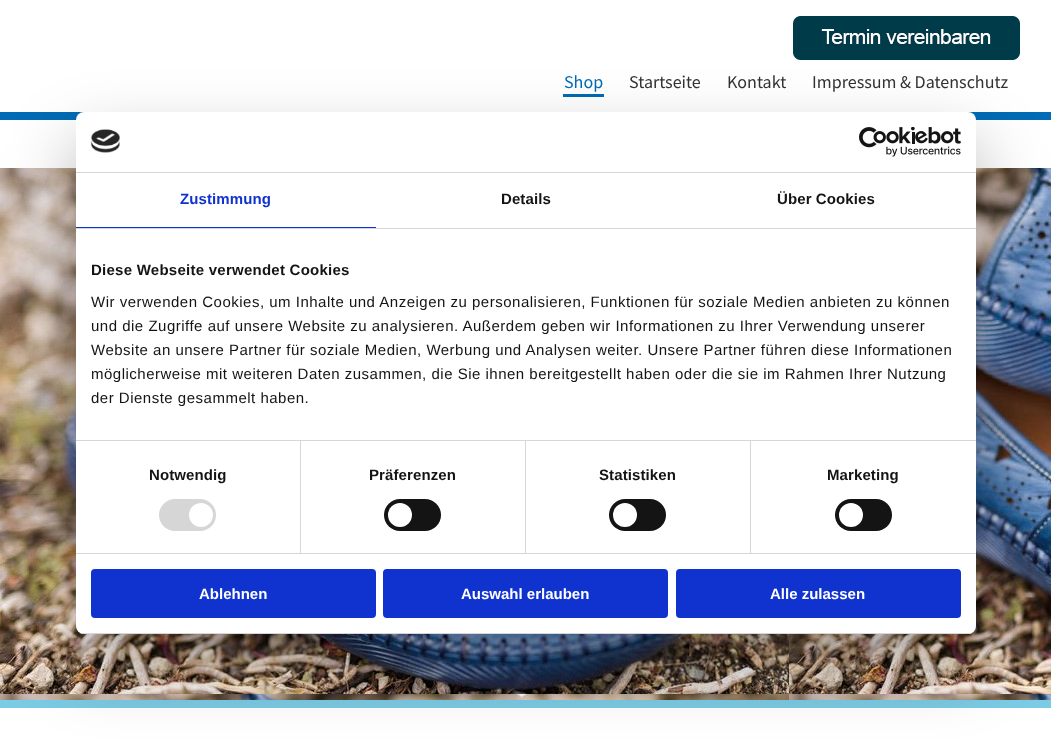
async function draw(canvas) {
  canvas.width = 1051;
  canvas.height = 745;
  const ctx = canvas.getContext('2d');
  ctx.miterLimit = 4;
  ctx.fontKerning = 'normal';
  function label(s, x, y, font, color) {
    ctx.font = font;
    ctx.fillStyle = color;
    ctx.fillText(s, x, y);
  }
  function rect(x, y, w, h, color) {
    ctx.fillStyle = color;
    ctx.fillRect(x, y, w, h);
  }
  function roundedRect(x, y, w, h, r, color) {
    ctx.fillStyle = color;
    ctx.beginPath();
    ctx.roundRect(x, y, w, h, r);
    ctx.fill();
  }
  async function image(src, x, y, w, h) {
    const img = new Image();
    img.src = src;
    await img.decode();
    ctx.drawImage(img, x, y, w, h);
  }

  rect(0, 0, 1051, 745, '#fff');
  rect(0, 112, 1051, 8, '#016bb5');
  await image('assets/img1.png', 793, 16, 227, 44);
  rect(563, 94, 41, 3, '#016bb5');
  label('Shop', 564, 88, '18px Source Sans Pro', '#016bb5');
  label('Startseite', 629, 88, '18px Source Sans Pro', '#333');
  label('Kontakt', 727, 88, '18px Source Sans Pro', '#333');
  label('Impressum & Datenschutz', 812, 88, '18px Source Sans Pro', '#333');
  await image('assets/img2.png', 0, 168, 1051, 532);
  rect(0, 700, 1051, 8, '#7bcbe4');
  ctx.fillStyle = '#0000004d';
  ctx.filter = 'blur(34px)';
  ctx.beginPath();
  ctx.roundRect(76, 144, 900, 522, 8);
  ctx.fill();
  ctx.filter = 'none';
  roundedRect(76, 112, 900, 522, 8, '#fff');
  rect(76, 172, 900, 1, '#d6d6d6');
  await image('assets/img3.png', 90, 129, 30, 24);
  await image('assets/img4.png', 859, 127, 102, 30);
  rect(76, 228, 900, 1, '#d6d6d6');
  rect(76, 227, 300, 1, '#1032cf');
  ctx.letterSpacing = '0.1px';
  label('Zustimmung', 180, 204, 'bold 15px Liberation Sans', '#1032cf');
  label('Details', 501, 204, 'bold 15px Liberation Sans', '#141414');
  label('Über Cookies', 777, 204, 'bold 15px Liberation Sans', '#141414');
  rect(76, 440, 900, 1, '#d6d6d6');
  ctx.letterSpacing = '0.25px';
  label('Diese Webseite verwendet Cookies', 91, 275, 'bold 15px Liberation Sans', '#141414');
  ctx.letterSpacing = '0.5px';
  label('Wir verwenden Cookies, um Inhalte und Anzeigen zu personalisieren, Funktionen für soziale Medien anbieten zu können', 91, 307, '15px Liberation Sans', '#141414');
  label('und die Zugriffe auf unsere Website zu analysieren. Außerdem geben wir Informationen zu Ihrer Verwendung unserer', 91, 331, '15px Liberation Sans', '#141414');
  label('Website an unsere Partner für soziale Medien, Werbung und Analysen weiter. Unsere Partner führen diese Informationen', 91, 355, '15px Liberation Sans', '#141414');
  label('möglicherweise mit weiteren Daten zusammen, die Sie ihnen bereitgestellt haben oder die sie im Rahmen Ihrer Nutzung', 91, 379, '15px Liberation Sans', '#141414');
  label('der Dienste gesammelt haben.', 91, 403, '15px Liberation Sans', '#141414');
  rect(76, 553, 900, 1, '#d6d6d6');
  rect(300, 441, 1, 112, '#d6d6d6');
  ctx.letterSpacing = '0.1px';
  label('Notwendig', 149, 480, 'bold 15px Liberation Sans', '#141414');
  roundedRect(159, 499, 57, 32, 16, '#d6d6d6');
  ctx.fillStyle = '#fff';
  ctx.beginPath();
  ctx.arc(201, 515, 12, 0, 2 * Math.PI);
  ctx.fill();
  rect(525, 441, 1, 112, '#d6d6d6');
  label('Präferenzen', 369, 480, 'bold 15px Liberation Sans', '#141414');
  roundedRect(384, 499, 57, 32, 16, '#141414');
  ctx.fillStyle = '#fff';
  ctx.beginPath();
  ctx.arc(400, 515, 12, 0, 2 * Math.PI);
  ctx.fill();
  rect(750, 441, 1, 112, '#d6d6d6');
  label('Statistiken', 599, 480, 'bold 15px Liberation Sans', '#141414');
  roundedRect(609, 499, 57, 32, 16, '#141414');
  ctx.fillStyle = '#fff';
  ctx.beginPath();
  ctx.arc(625, 515, 12, 0, 2 * Math.PI);
  ctx.fill();
  label('Marketing', 827, 480, 'bold 15px Liberation Sans', '#141414');
  roundedRect(835, 499, 57, 32, 16, '#141414');
  ctx.fillStyle = '#fff';
  ctx.beginPath();
  ctx.arc(851, 515, 12, 0, 2 * Math.PI);
  ctx.fill();
  ctx.save();
  ctx.beginPath();
  ctx.roundRect(76, 112, 900, 522, 8);
  ctx.clip();
  rect(76, 633, 900, 1, '#d6d6d6');
  ctx.restore();
  ctx.fillStyle = '#1032cf';
  ctx.beginPath();
  ctx.roundRect(92, 570, 283, 47, 3);
  ctx.fill();
  ctx.strokeStyle = '#1032cf';
  ctx.lineWidth = 2;
  ctx.stroke();
  ctx.letterSpacing = '0px';
  label('Ablehnen', 199, 599, 'bold 15px Liberation Sans', '#fff');
  ctx.fillStyle = '#1032cf';
  ctx.beginPath();
  ctx.roundRect(384, 570, 283, 47, 3);
  ctx.fill();
  ctx.stroke();
  label('Auswahl erlauben', 461, 599, 'bold 15px Liberation Sans', '#fff');
  ctx.fillStyle = '#1032cf';
  ctx.beginPath();
  ctx.roundRect(677, 570, 283, 47, 3);
  ctx.fill();
  ctx.stroke();
  label('Alle zulassen', 770, 599, 'bold 15px Liberation Sans', '#fff');
}

draw(document.querySelector('canvas'));
